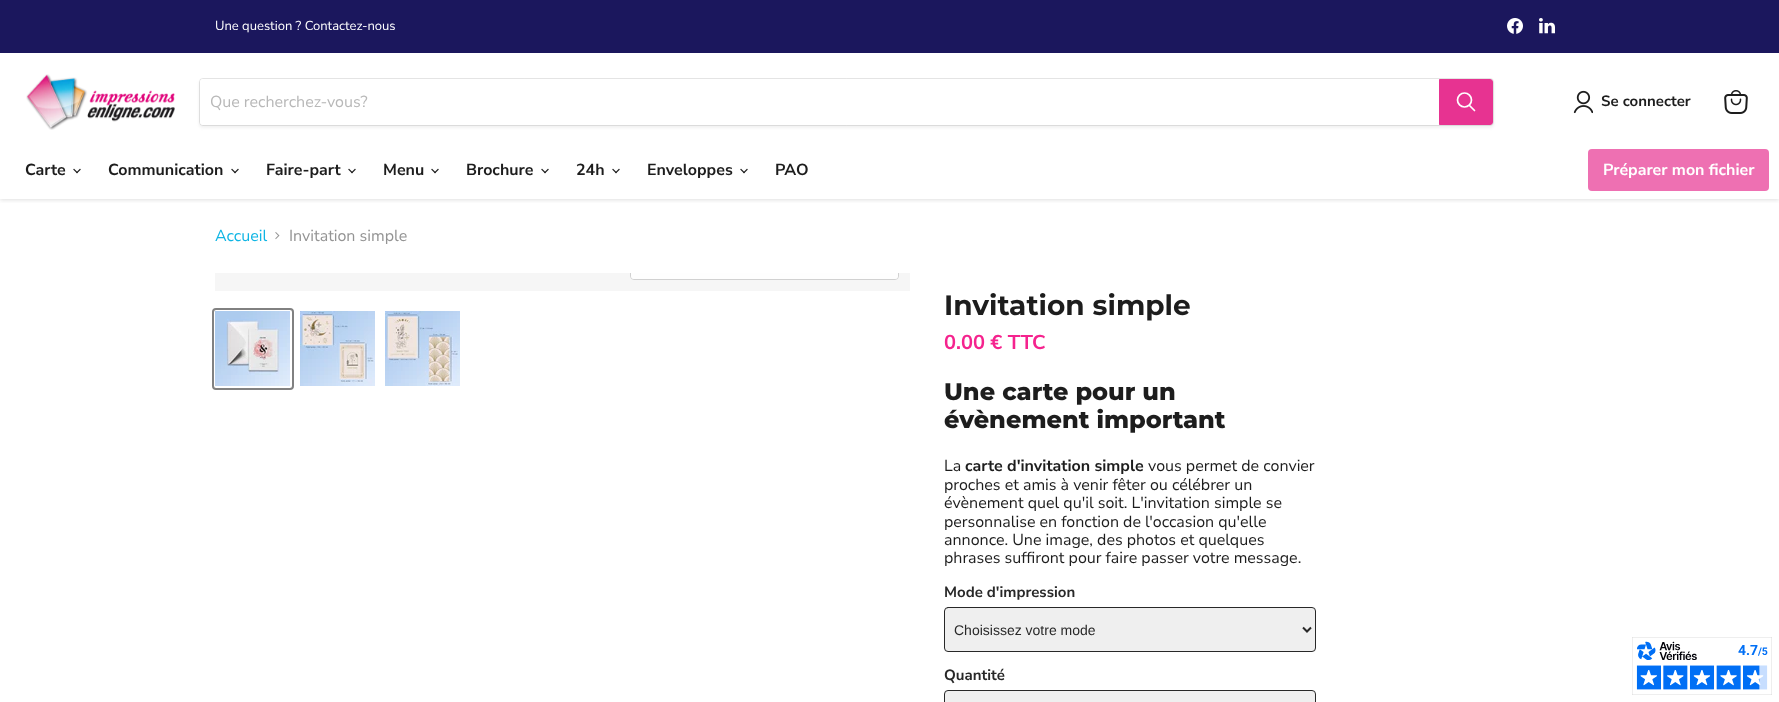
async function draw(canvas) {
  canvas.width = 1779;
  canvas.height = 702;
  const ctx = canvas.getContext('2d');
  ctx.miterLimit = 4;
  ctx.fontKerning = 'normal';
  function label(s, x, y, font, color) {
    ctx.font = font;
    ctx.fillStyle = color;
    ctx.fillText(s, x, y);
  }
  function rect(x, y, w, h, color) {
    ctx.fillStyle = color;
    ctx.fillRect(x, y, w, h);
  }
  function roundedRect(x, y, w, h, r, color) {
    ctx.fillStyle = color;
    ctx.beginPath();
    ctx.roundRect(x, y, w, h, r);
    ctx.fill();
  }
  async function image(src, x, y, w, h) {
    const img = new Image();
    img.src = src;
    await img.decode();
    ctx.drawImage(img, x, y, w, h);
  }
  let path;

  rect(0, 0, 1779, 702, '#fff');
  ctx.save();
  ctx.beginPath();
  ctx.rect(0, 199, 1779, 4);
  ctx.clip();
  ctx.fillStyle = '#80808040';
  ctx.filter = 'blur(2px)';
  ctx.beginPath();
  ctx.rect(0, 54, 1779, 146);
  ctx.fill();
  ctx.filter = 'none';
  ctx.restore();
  rect(0, 0, 1779, 53, '#1b175d');
  label('Une question ? Contactez-nous', 215, 30, '13px Nunito Sans', '#fff');
  await image('assets/img1.png', 1507, 18, 16, 16);
  await image('assets/img2.png', 1539, 18, 16, 16);
  await image('assets/img3.png', 26, 74, 149, 56);
  ctx.fillStyle = '#8080801c';
  ctx.filter = 'blur(1.5px)';
  ctx.beginPath();
  ctx.roundRect(199, 80, 1295, 48, 4);
  ctx.fill();
  ctx.filter = 'none';
  ctx.beginPath();
  ctx.roundRect(199.5, 78.5, 1294, 47, 3.5);
  ctx.strokeStyle = '#80808033';
  ctx.stroke();
  ctx.fillStyle = '#fff';
  ctx.beginPath();
  ctx.roundRect(200, 79, 1239, 46, [3, 0, 0, 3]);
  ctx.fill();
  label('Que recherchez-vous?', 210, 107, '16px Nunito Sans', '#b8b8b8');
  ctx.fillStyle = '#e73391';
  ctx.beginPath();
  ctx.roundRect(1439.5, 79.5, 53, 45, [0, 2.5, 2.5, 0]);
  ctx.fill();
  ctx.strokeStyle = '#e73391';
  ctx.stroke();
  path = new Path2D('M1474.5 110.5L1469.5 105.5');
  ctx.strokeStyle = '#fff';
  ctx.lineWidth = 1.7;
  ctx.lineCap = 'round';
  ctx.stroke(path);
  ctx.beginPath();
  ctx.arc(1464.5, 100, 7, 0, 2 * Math.PI);
  ctx.stroke();
  await image('assets/img4.png', 1573, 90, 20, 24);
  label('Se connecter', 1601, 106, 'bold 15px Nunito Sans', '#1d1d1d');
  await image('assets/img5.png', 1724, 90, 24, 24);
  label('Carte', 25, 175, 'bold 16px Nunito Sans', '#1d1d1d');
  await image('assets/img6.png', 73, 168, 8, 6);
  label('Communication', 108, 175, 'bold 16px Nunito Sans', '#1d1d1d');
  await image('assets/img6.png', 231, 168, 8, 6);
  label('Faire-part', 266, 175, 'bold 16px Nunito Sans', '#1d1d1d');
  await image('assets/img6.png', 348, 168, 8, 6);
  label('Menu', 383, 175, 'bold 16px Nunito Sans', '#1d1d1d');
  await image('assets/img6.png', 431, 168, 8, 6);
  label('Brochure', 466, 175, 'bold 16px Nunito Sans', '#1d1d1d');
  await image('assets/img6.png', 541, 168, 8, 6);
  label('24h', 576, 175, 'bold 16px Nunito Sans', '#1d1d1d');
  await image('assets/img6.png', 612, 168, 8, 6);
  label('Enveloppes', 647, 175, 'bold 16px Nunito Sans', '#1d1d1d');
  await image('assets/img6.png', 740, 168, 8, 6);
  label('PAO', 775, 175, 'bold 16px Nunito Sans', '#1d1d1d');
  roundedRect(1588, 149, 181, 42, 4, '#ee70b2');
  label('Préparer mon fichier', 1603, 175, 'bold 16px Nunito Sans', '#fff');
  label('Accueil', 215, 241, '16px Nunito Sans', '#0fb5e4');
  await image('assets/img7.png', 275, 232, 5, 8);
  label('Invitation simple', 289, 241, '16px Nunito Sans', '#949494');
  rect(215, 273, 695, 18, '#f6f6f6');
  ctx.save();
  ctx.beginPath();
  ctx.rect(215, 273, 695, 18);
  ctx.clip();
  ctx.beginPath();
  ctx.roundRect(630.5, 250.5, 268, 29, 3.5);
  ctx.strokeStyle = '#d1d1d1';
  ctx.lineWidth = 1;
  ctx.stroke();
  ctx.restore();
  ctx.fillStyle = '#ffffffe6';
  ctx.beginPath();
  ctx.roundRect(631, 273, 267, 6, [0, 0, 3, 3]);
  ctx.fill();
  ctx.beginPath();
  ctx.roundRect(213, 309, 80, 80, 3);
  ctx.strokeStyle = '#818181';
  ctx.lineWidth = 2;
  ctx.stroke();
  await image('assets/img8.png', 215, 311, 75, 75);
  await image('assets/img9.png', 300, 311, 75, 75);
  await image('assets/img10.png', 385, 311, 75, 75);
  label('Invitation simple', 944, 315, 'bold 28px Montserrat', '#1d1d1d');
  label('0.00 € TTC', 944, 349, 'bold 20px Nunito Sans', '#f5238e');
  label('Une carte pour un', 944, 400, '800 24px Montserrat', '#1d1d1d');
  label('évènement important', 944, 428, '800 24px Montserrat', '#1d1d1d');
  label('La', 944, 471, '16px Nunito Sans', '#1d1d1d');
  label('carte d\'invitation simple', 965, 471, 'bold 16px Nunito Sans', '#1d1d1d');
  label('vous permet de convier', 1148, 471, '16px Nunito Sans', '#1d1d1d');
  label('proches et amis à venir fêter ou célébrer un', 944, 490, '16px Nunito Sans', '#1d1d1d');
  label('évènement quel qu\'il soit. L\'invitation simple se', 944, 508, '16px Nunito Sans', '#1d1d1d');
  label('personnalise en fonction de l\'occasion qu\'elle', 944, 527, '16px Nunito Sans', '#1d1d1d');
  label('annonce. Une image, des photos et quelques', 944, 545, '16px Nunito Sans', '#1d1d1d');
  label('phrases suffiront pour faire passer votre message.', 944, 563, '16px Nunito Sans', '#1d1d1d');
  label('Mode d\'impression', 944, 597, 'bold 15px Nunito Sans', '#282828');
  ctx.fillStyle = '#efefef';
  ctx.beginPath();
  ctx.roundRect(944.5, 607.5, 371, 44, 3.5);
  ctx.fill();
  ctx.strokeStyle = '#282828';
  ctx.lineWidth = 1;
  ctx.stroke();
  path = new Path2D('M1303 627.5L1307 631.5L1311 627.5');
  ctx.lineWidth = 2;
  ctx.lineCap = 'butt';
  ctx.stroke(path);
  label('Choisissez votre mode', 954, 635, '14px Liberation Sans', '#282828');
  label('Quantité', 944, 680, 'bold 15px Nunito Sans', '#282828');
  ctx.fillStyle = '#efefef';
  ctx.beginPath();
  ctx.roundRect(944.5, 690.5, 371, 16, 3.5);
  ctx.fill();
  ctx.lineWidth = 1;
  ctx.stroke();
  await image('assets/img11.png', 1632, 637, 140, 58);
}

draw(document.querySelector('canvas'));
